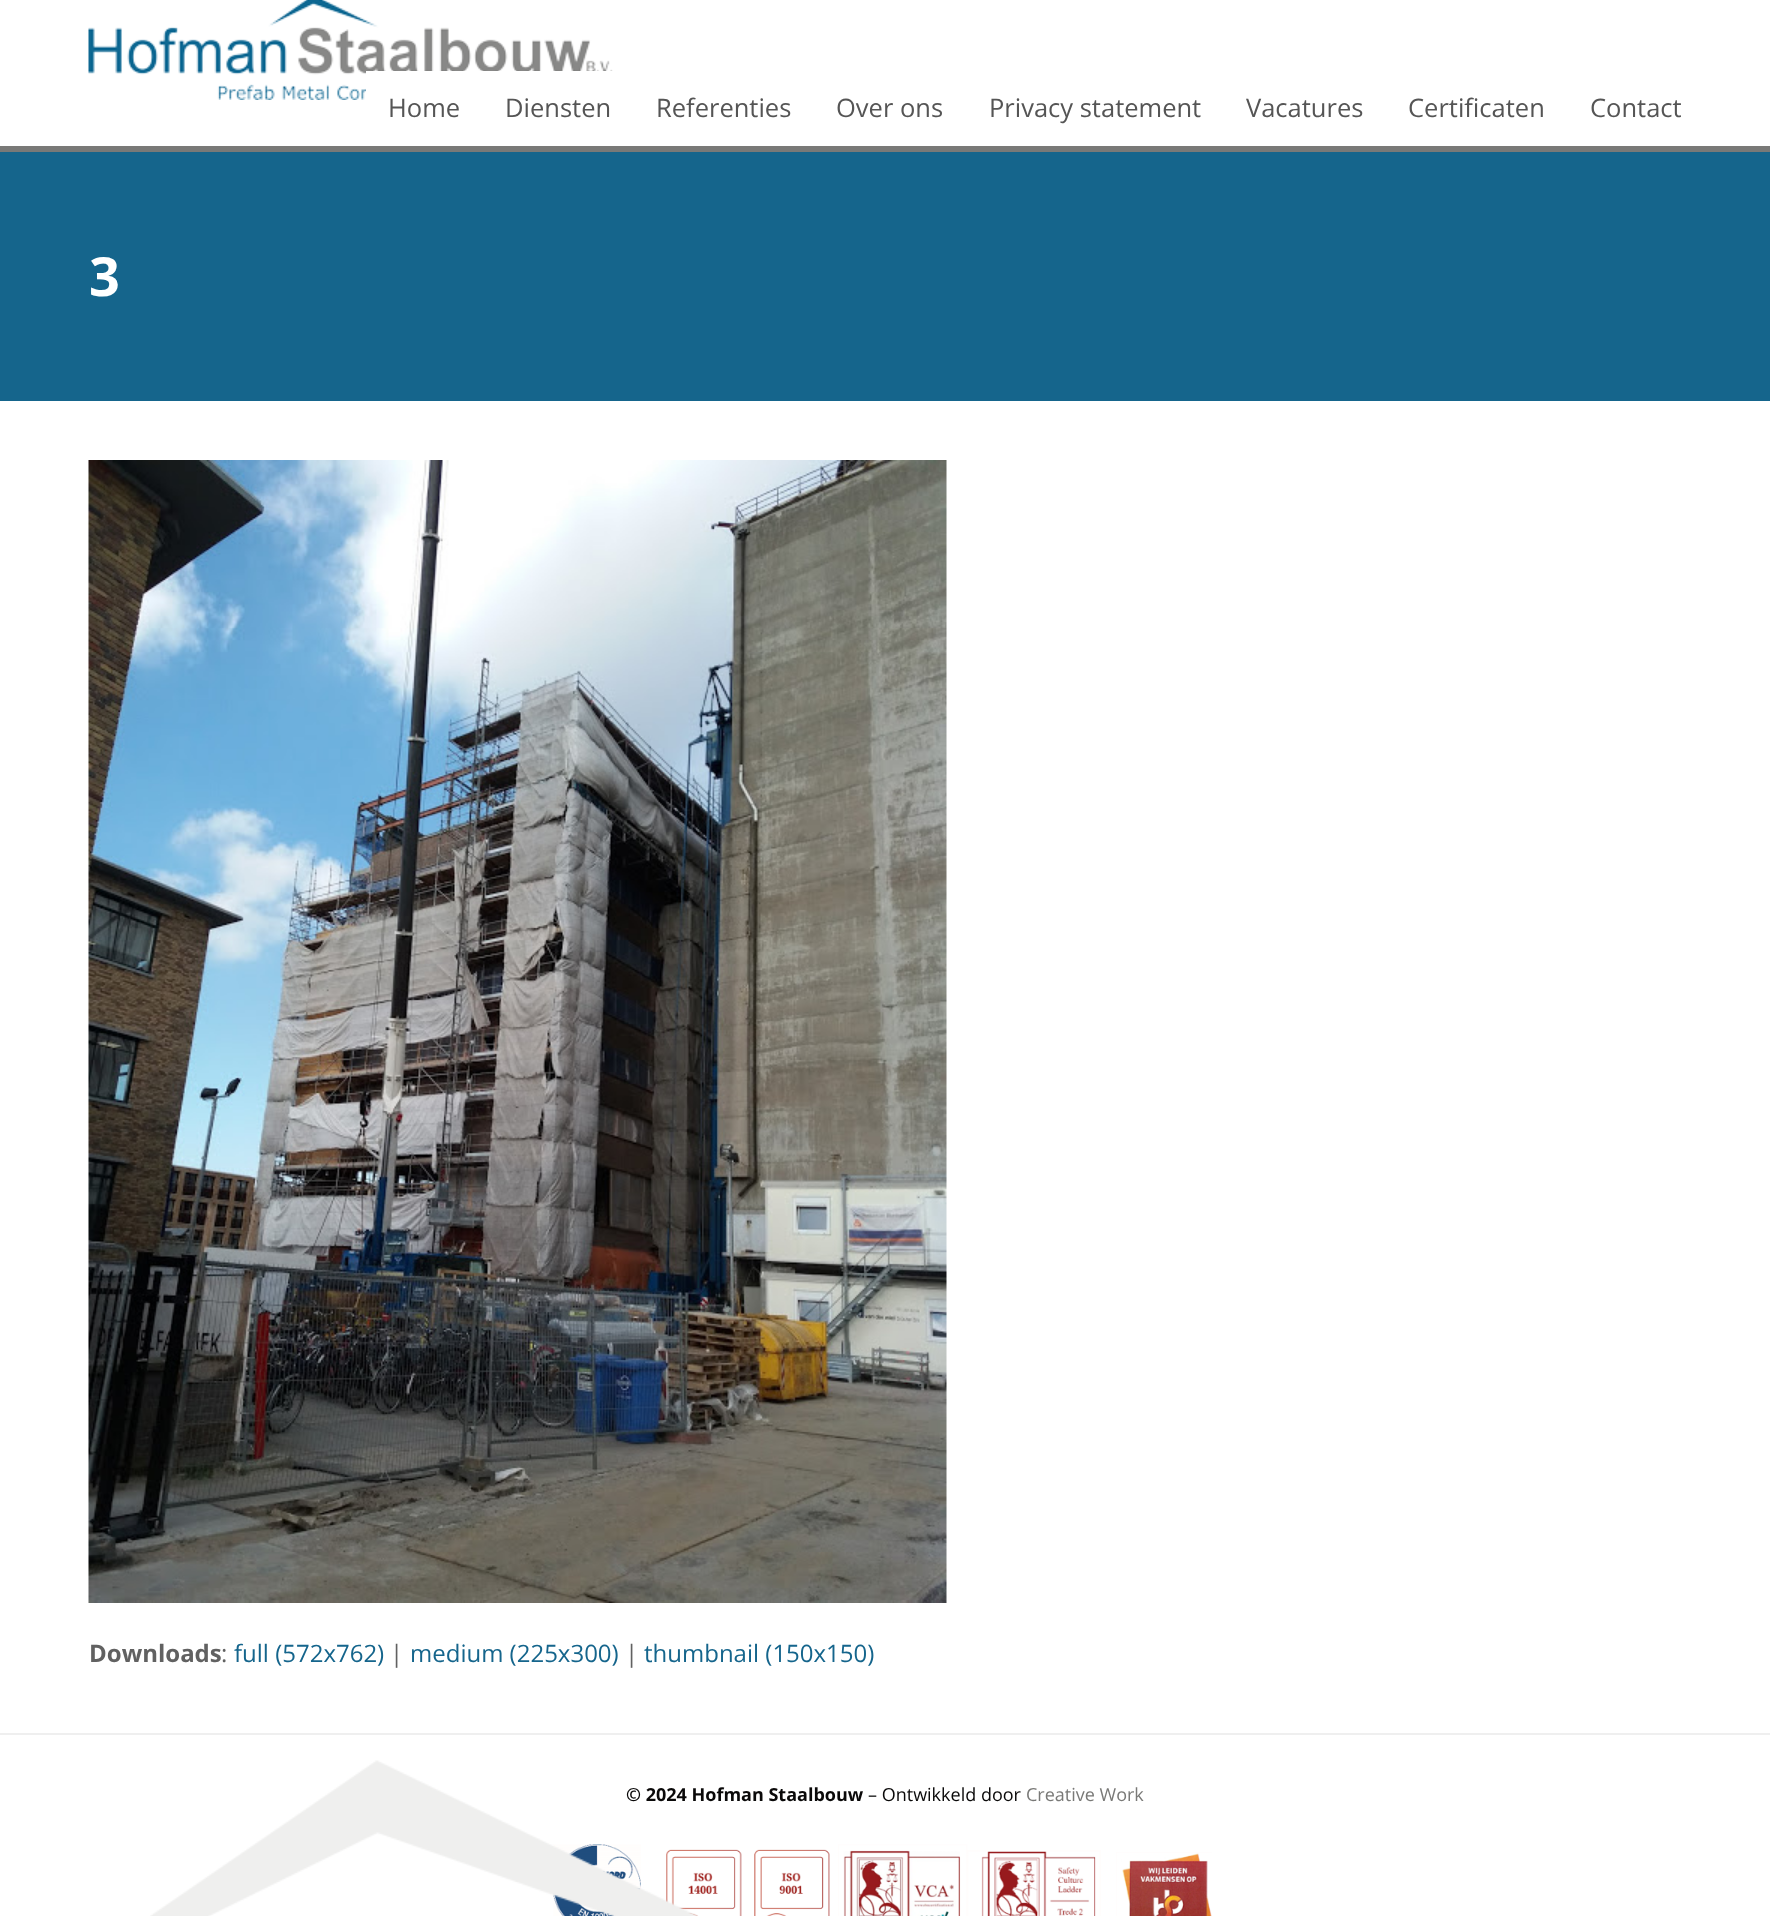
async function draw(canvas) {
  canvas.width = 1770;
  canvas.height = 1916;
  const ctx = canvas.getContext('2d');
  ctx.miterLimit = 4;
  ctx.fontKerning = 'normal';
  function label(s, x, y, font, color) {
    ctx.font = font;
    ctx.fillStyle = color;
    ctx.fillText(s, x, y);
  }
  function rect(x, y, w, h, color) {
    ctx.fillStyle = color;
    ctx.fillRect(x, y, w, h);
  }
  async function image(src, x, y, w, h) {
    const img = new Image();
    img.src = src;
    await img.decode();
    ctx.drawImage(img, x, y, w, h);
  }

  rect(0, 0, 1770, 1916, '#fff');
  rect(0, 146, 1770, 6, '#797977');
  await image('assets/img1.png', 88, 0, 525, 100);
  rect(366, 71, 117, 29, '#fff');
  label('Home', 388, 117, '25.5px Open Sans', '#555');
  rect(483, 71, 130, 4, '#fff');
  label('Diensten', 505, 117, '25.5px Open Sans', '#555');
  label('Referenties', 656, 117, '25.5px Open Sans', '#555');
  label('Over ons', 836, 117, '25.5px Open Sans', '#555');
  label('Privacy statement', 989, 117, '25.5px Open Sans', '#555');
  label('Vacatures', 1246, 117, '25.5px Open Sans', '#555');
  label('Certificaten', 1408, 117, '25.5px Open Sans', '#555');
  label('Contact', 1590, 117, '25.5px Open Sans', '#555');
  rect(0, 152, 1770, 249, '#15658c');
  label('3', 89, 296, 'bold 54px Open Sans', '#fff');
  await image('assets/img2.png', 88, 460, 859, 1143);
  label('Downloads', 89, 1662, 'bold 24px Open Sans', '#616161');
  label(':', 221, 1662, '24px Open Sans', '#616161');
  label('full (572x762)', 234, 1662, '24px Open Sans', '#15658c');
  label('|', 390, 1662, '24px Open Sans', '#616161');
  label('medium (225x300)', 410, 1662, '24px Open Sans', '#15658c');
  label('|', 625, 1662, '24px Open Sans', '#616161');
  label('thumbnail (150x150)', 644, 1662, '24px Open Sans', '#15658c');
  label('© 2024 Hofman Staalbouw', 626, 1801, 'bold 18px Open Sans', '#0a0909');
  await image('assets/img4.png', 553, 1844, 659, 72);
  await image('assets/img3.png', 150, 1760, 548, 156);
  rect(0, 1733, 1770, 2, '#efefef');
  label('– Ontwikkeld door', 868, 1801, '18px Open Sans', '#0a0909');
  label('Creative Work', 1026, 1801, '18px Open Sans', '#797977');
}

draw(document.querySelector('canvas'));
